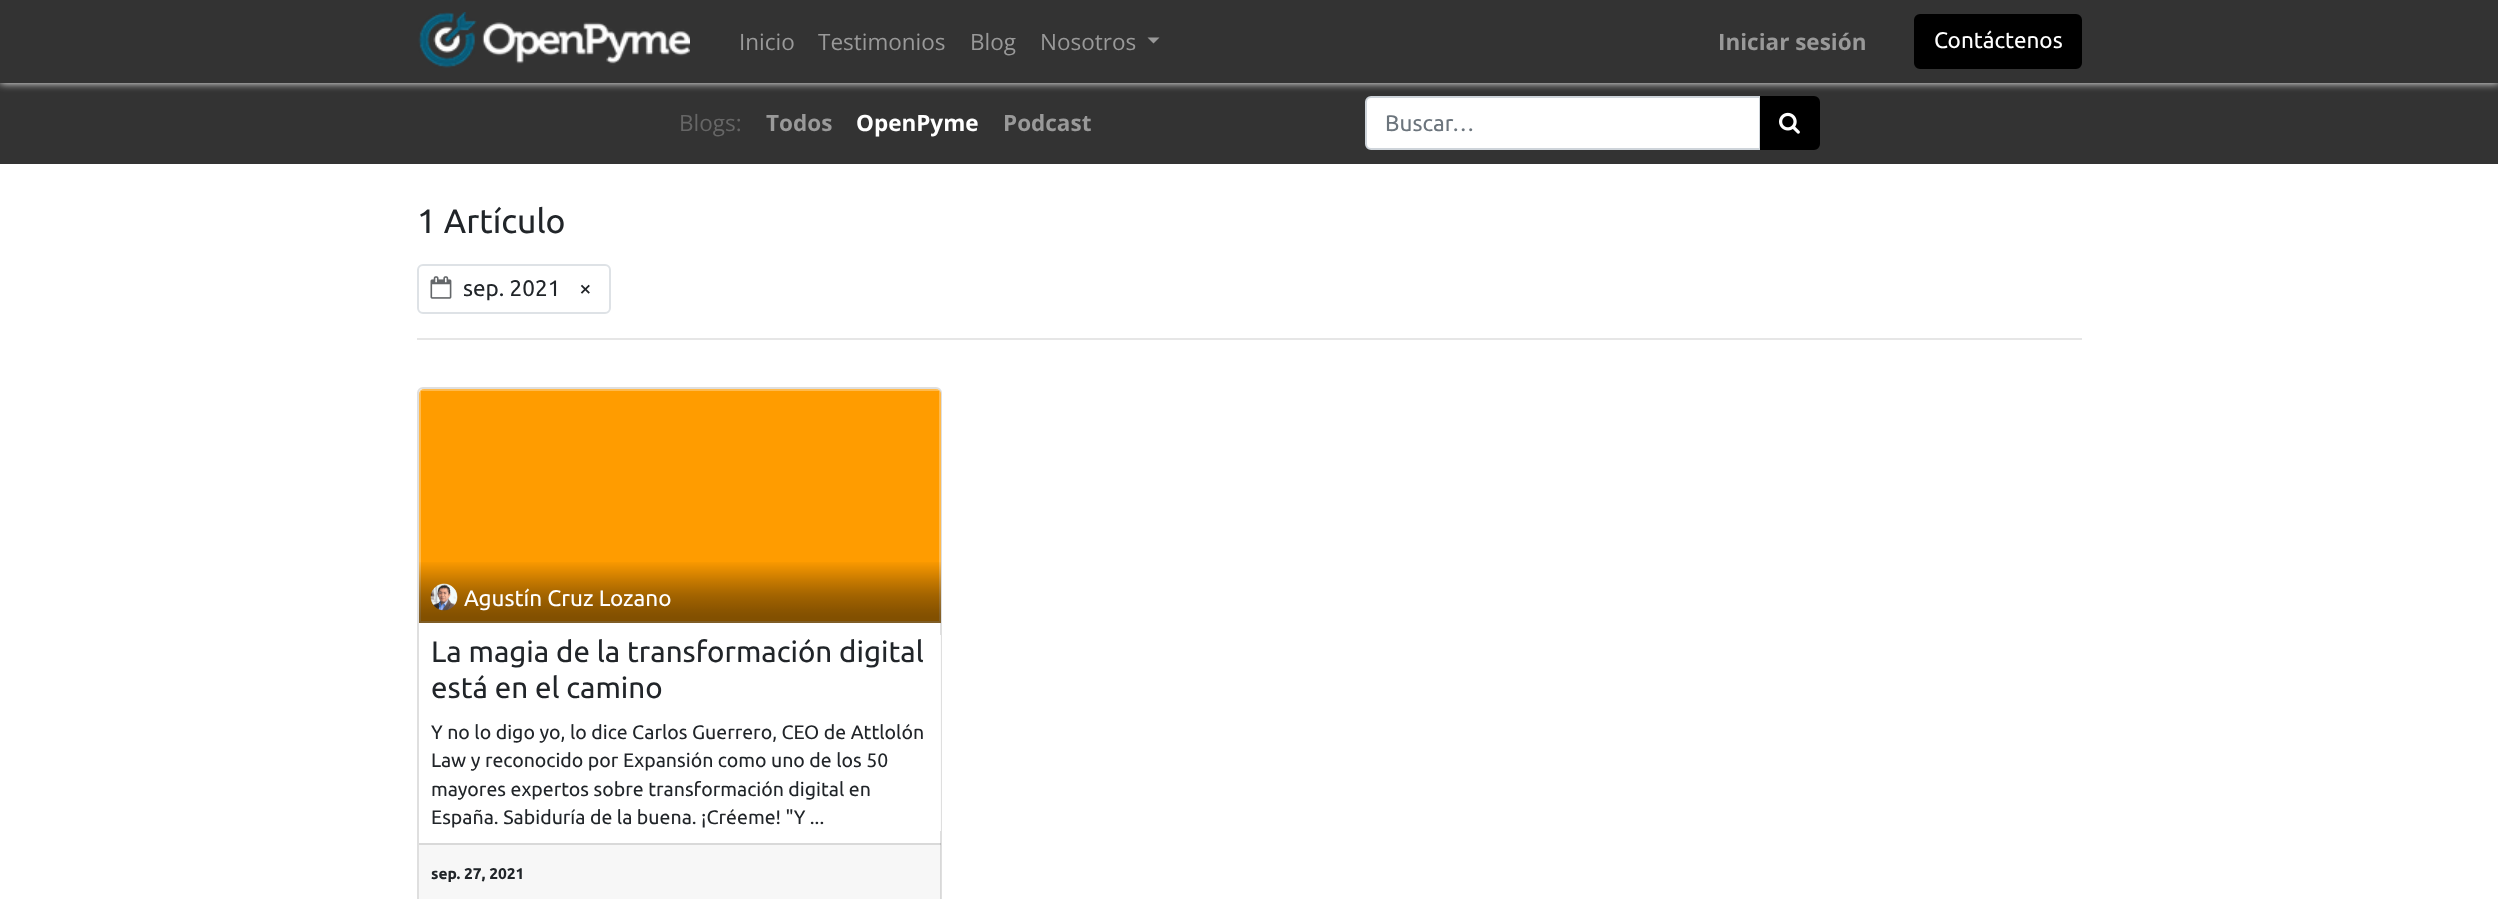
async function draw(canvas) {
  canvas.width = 2498;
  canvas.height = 899;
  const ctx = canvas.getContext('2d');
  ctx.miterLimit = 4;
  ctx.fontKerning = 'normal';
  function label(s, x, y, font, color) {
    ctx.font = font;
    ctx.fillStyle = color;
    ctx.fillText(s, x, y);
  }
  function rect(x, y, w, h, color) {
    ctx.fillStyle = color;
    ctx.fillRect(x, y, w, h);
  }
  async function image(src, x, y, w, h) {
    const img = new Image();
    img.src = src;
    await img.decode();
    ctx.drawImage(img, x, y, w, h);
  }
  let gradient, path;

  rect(0, 0, 2498, 899, '#fff');
  rect(0, 83, 2498, 81, '#333');
  ctx.fillStyle = '#fff';
  ctx.filter = 'blur(4px)';
  ctx.beginPath();
  ctx.rect(0, 0, 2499, 83);
  ctx.fill();
  ctx.filter = 'none';
  rect(0, 0, 2498, 83, '#333');
  await image('assets/img1.png', 418, 12, 272, 56);
  label('Inicio', 739, 50, '22.5px Open Sans', '#999');
  label('Testimonios', 818, 50, '22.5px Open Sans', '#999');
  label('Blog', 970, 50, '22.5px Open Sans', '#999');
  label('Nosotros', 1040, 50, '22.5px Open Sans', '#999');
  path = new Path2D('M1147.5 37.5H1159.5L1153.5 43.5Z');
  ctx.fill(path);
  label('Iniciar sesión', 1718, 50, 'bold 22.5px Open Sans', '#999');
  ctx.fillStyle = '#000';
  ctx.beginPath();
  ctx.roundRect(1915, 15, 166, 53, 5);
  ctx.fill();
  ctx.strokeStyle = '#000';
  ctx.lineWidth = 2;
  ctx.stroke();
  label('Contáctenos', 1934, 48, '22.5px Ubuntu', '#fff');
  label('Blogs:', 679, 131, '22.5px Open Sans', '#666');
  label('Todos', 766, 131, 'bold 22.5px Open Sans', '#999');
  label('OpenPyme', 856, 131, 'bold 22.5px Open Sans', '#fff');
  label('Podcast', 1003, 131, 'bold 22.5px Open Sans', '#999');
  ctx.fillStyle = '#fff';
  ctx.beginPath();
  ctx.roundRect(1366, 97, 394, 52, [5, 0, 0, 5]);
  ctx.fill();
  ctx.strokeStyle = '#ced4da';
  ctx.stroke();
  label('Buscar…', 1385, 131, '22.5px Ubuntu', '#6c757d');
  ctx.fillStyle = '#000';
  ctx.beginPath();
  ctx.roundRect(1761, 97, 58, 52, [0, 5, 5, 0]);
  ctx.fill();
  ctx.strokeStyle = '#000';
  ctx.stroke();
  await image('assets/img2.png', 1779, 112, 21, 22);
  label('1 Artículo', 417, 233, '33.75px Ubuntu', '#212529');
  ctx.beginPath();
  ctx.roundRect(418, 265, 192, 48, 5);
  ctx.strokeStyle = '#dee2e6';
  ctx.stroke();
  await image('assets/img3.png', 430, 276, 22, 23);
  label('sep. 2021', 463, 296, '22.5px Ubuntu', '#212529');
  label('×', 579, 296, '22.5px Ubuntu', '#212529');
  rect(417, 338, 1665, 2, '#e6e6e6');
  ctx.beginPath();
  ctx.roundRect(418, 388, 523, 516, 5);
  ctx.strokeStyle = '#dfdfdf';
  ctx.stroke();
  ctx.fillStyle = '#ff9c00';
  ctx.beginPath();
  ctx.roundRect(419, 389, 522, 234, [5, 5, 0, 0]);
  ctx.fill();
  ctx.fillStyle = '#ffffff4d';
  path = new Path2D('M424 389C421 389 419 391 419 394V623H941V394C941 391 939 389 936 389ZM421 391V621H939V391Z');
  ctx.fill(path, 'evenodd');
  gradient = ctx.createLinearGradient(680, 560, 680, 623);
  gradient.addColorStop(0, '#00000000');
  gradient.addColorStop(0.19, '#00000021');
  gradient.addColorStop(0.34, '#0000003b');
  gradient.addColorStop(0.47, '#0000004f');
  gradient.addColorStop(0.56, '#0000005c');
  gradient.addColorStop(0.65, '#00000066');
  gradient.addColorStop(0.73, '#0000006e');
  gradient.addColorStop(0.8, '#00000075');
  gradient.addColorStop(0.86, '#0000007a');
  gradient.addColorStop(0.91, '#0000007d');
  gradient.addColorStop(0.95, '#0000007d');
  gradient.addColorStop(0.98, '#00000080');
  gradient.addColorStop(1, '#00000080');
  ctx.fillStyle = gradient;
  ctx.fillRect(419, 562, 522, 61);
  await image('assets/img4.png', 430, 583, 28, 28);
  label('Agustín Cruz Lozano', 464, 606, '22.5px Ubuntu', '#fff');
  rect(940, 635, 1, 196, '#ffffffe6');
  label('La magia de la transformación digital', 431, 662, '29.5px Ubuntu', '#212529');
  label('está en el camino', 431, 698, '29.5px Ubuntu', '#212529');
  label('Y no lo digo yo, lo dice Carlos Guerrero, CEO de Attlolón', 431, 739, '19.5px Ubuntu', '#212529');
  label('Law y reconocido por Expansión como uno de los 50', 431, 767, '19.5px Ubuntu', '#212529');
  label('mayores expertos sobre transformación digital en', 431, 796, '19.5px Ubuntu', '#212529');
  label('España. Sabiduría de la buena. ¡Créeme! "Y ...', 431, 824, '19.5px Ubuntu', '#212529');
  rect(419, 843, 522, 56, '#00000008');
  rect(419, 843, 522, 2, '#0000001f');
  label('sep. 27, 2021', 431, 879, 'bold 15.5px Ubuntu', '#212529');
}

draw(document.querySelector('canvas'));
